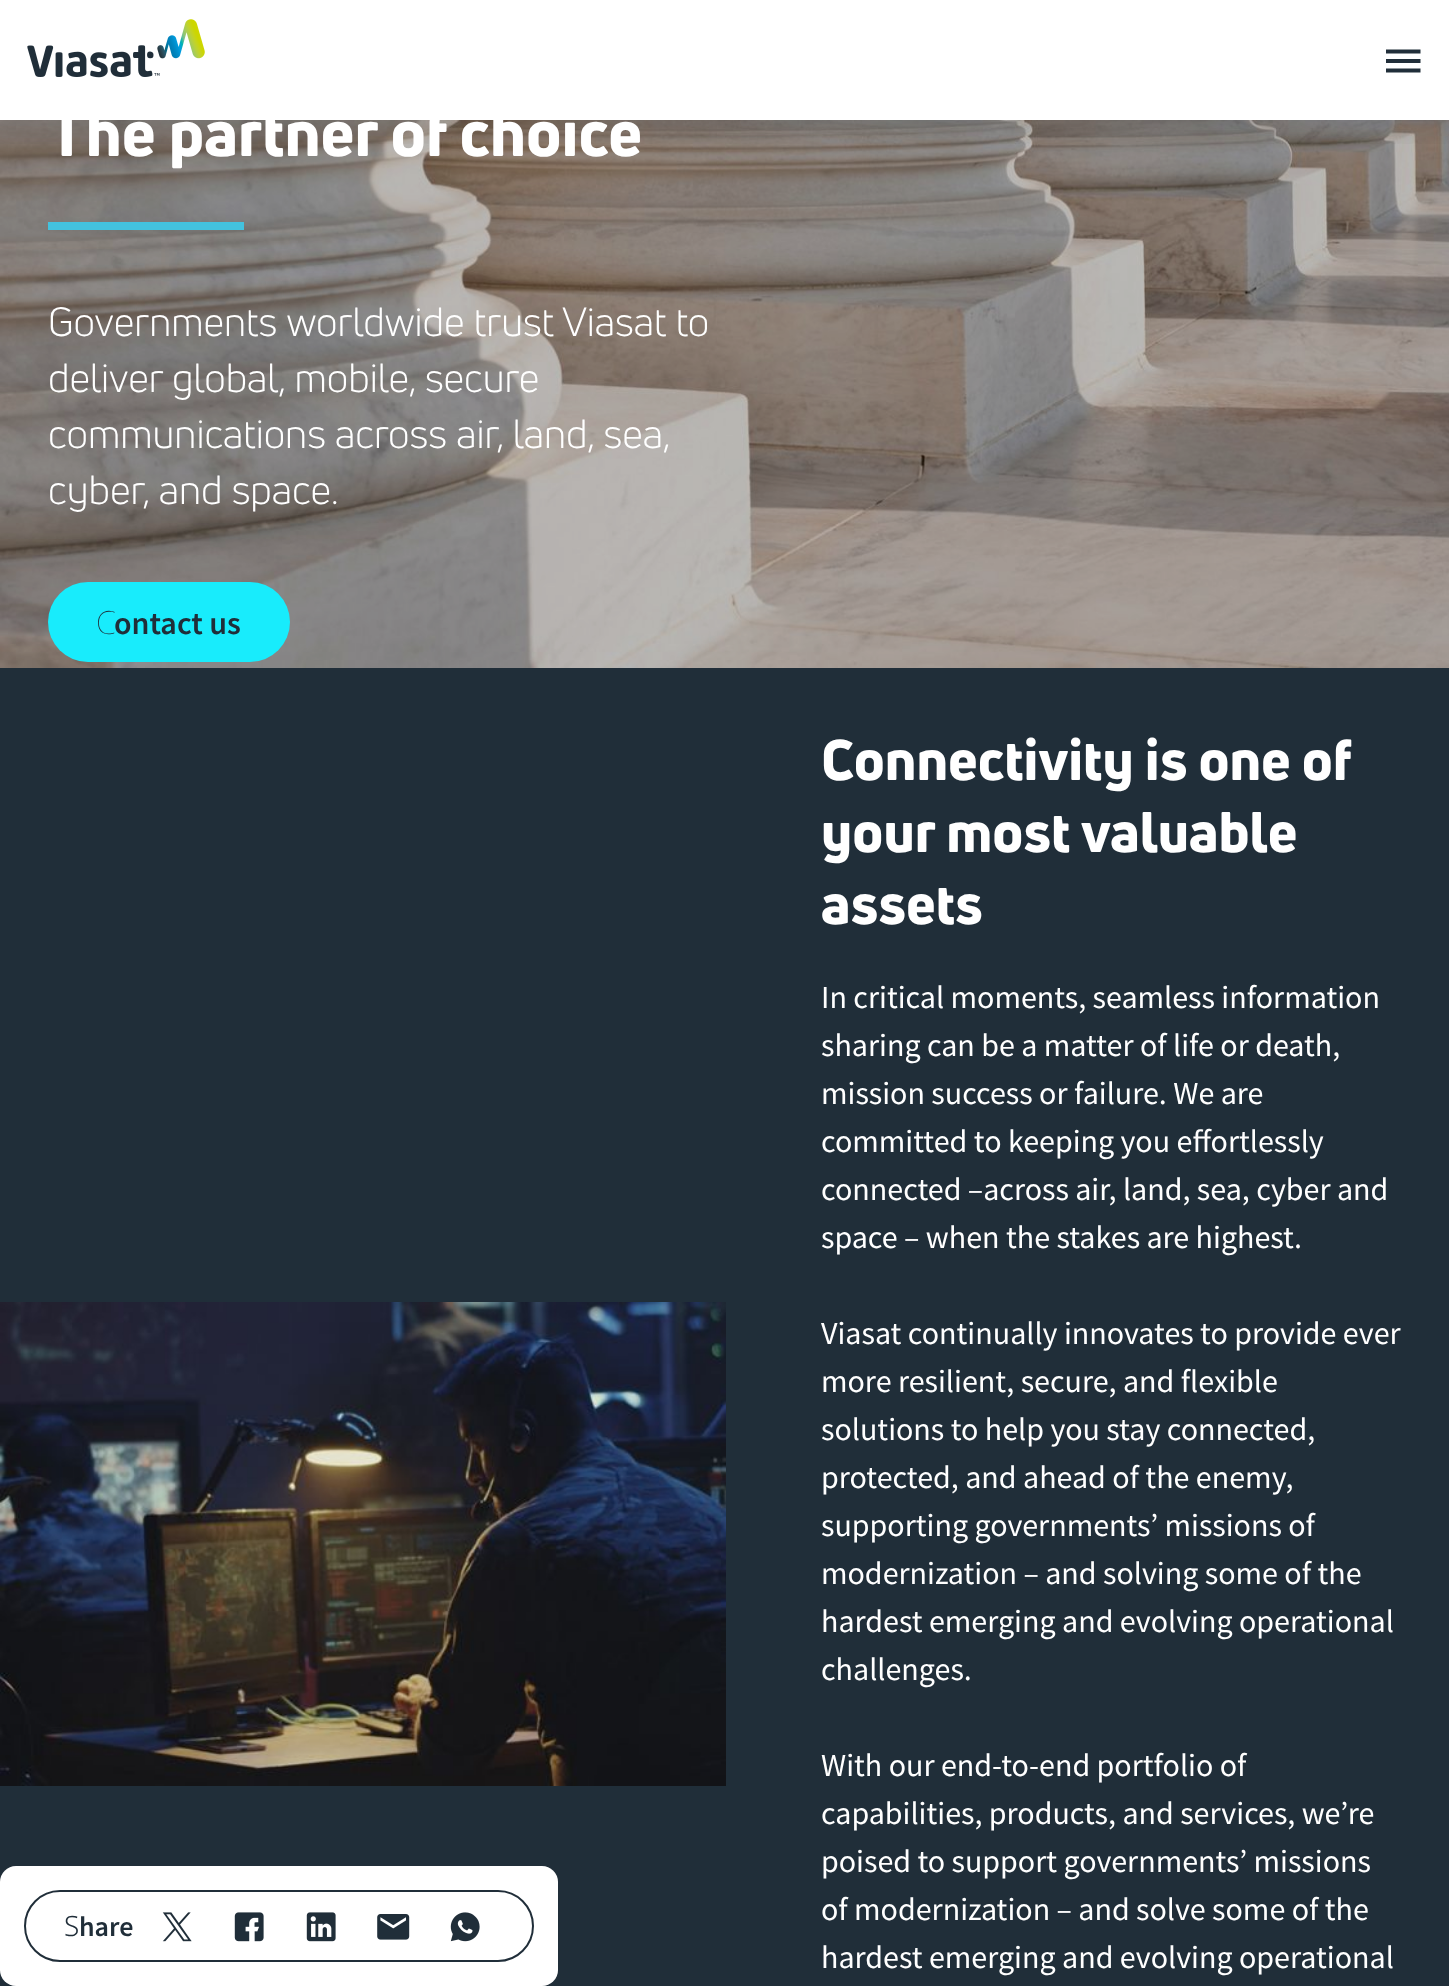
async function draw(canvas) {
  canvas.width = 1449;
  canvas.height = 1986;
  const ctx = canvas.getContext('2d');
  ctx.miterLimit = 4;
  ctx.fontKerning = 'normal';
  function label(s, x, y, font, color) {
    ctx.font = font;
    ctx.fillStyle = color;
    ctx.fillText(s, x, y);
  }
  function rect(x, y, w, h, color) {
    ctx.fillStyle = color;
    ctx.fillRect(x, y, w, h);
  }
  function roundedRect(x, y, w, h, r, color) {
    ctx.fillStyle = color;
    ctx.beginPath();
    ctx.roundRect(x, y, w, h, r);
    ctx.fill();
  }
  async function image(src, x, y, w, h) {
    const img = new Image();
    img.src = src;
    await img.decode();
    ctx.drawImage(img, x, y, w, h);
  }
  let path;

  rect(0, 0, 1449, 1986, '#fff');
  await image('assets/img2.png', 0, 120, 1449, 548);
  ctx.save();
  ctx.beginPath();
  ctx.rect(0, 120, 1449, 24);
  ctx.clip();
  ctx.fillStyle = '#0000001f';
  ctx.filter = 'blur(12px)';
  ctx.beginPath();
  ctx.rect(-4, 4, 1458, 128);
  ctx.fill();
  ctx.filter = 'none';
  ctx.restore();
  await image('assets/img1.png', 27, 19, 178, 59);
  ctx.fillStyle = '#202e39';
  path = new Path2D('M1386 72.5H1420.5V68.5H1386ZM1386 63H1420.5V59H1386ZM1386 49.5V53.5H1420.5V49.5Z');
  ctx.fill(path);
  label('The partner of choice', 48, 156, '900 64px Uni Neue', '#fff');
  rect(48, 222, 196, 8, '#43c2de');
  label('Governments worldwide trust Viasat to', 48, 336, '40px Uni Neue', '#fff');
  label('deliver global, mobile, secure', 48, 392, '40px Uni Neue', '#fff');
  label('communications across air, land, sea,', 48, 448, '40px Uni Neue', '#fff');
  label('cyber, and space.', 48, 504, '40px Uni Neue', '#fff');
  roundedRect(48, 582, 242, 80, 40, '#18ecfc');
  label('C', 96, 634, '100 32px Noto Sans', '#202e39');
  label('ontact us', 114, 634, '600 32px Source Sans Pro', '#202e39');
  rect(0, 668, 1449, 1318, '#202e39');
  await image('assets/img3.png', 0, 1302, 726, 484);
  ctx.wordSpacing = '-0.5px';
  label('Connectivity is one of', 821, 780, '900 56px Uni Neue', '#fff');
  ctx.wordSpacing = '0px';
  label('your most valuable', 821, 852, '900 56px Uni Neue', '#fff');
  label('assets', 821, 924, '900 56px Uni Neue', '#fff');
  label('In critical moments, seamless information', 821, 1008, '32px Source Sans Pro', '#fff');
  label('sharing can be a matter of life or death,', 821, 1056, '32px Source Sans Pro', '#fff');
  label('mission success or failure. We are', 821, 1104, '32px Source Sans Pro', '#fff');
  label('committed to keeping you effortlessly', 821, 1152, '32px Source Sans Pro', '#fff');
  label('connected –across air, land, sea, cyber and', 821, 1200, '32px Source Sans Pro', '#fff');
  label('space – when the stakes are highest.', 821, 1248, '32px Source Sans Pro', '#fff');
  label('Viasat continually innovates to provide ever', 821, 1344, '32px Source Sans Pro', '#fff');
  label('more resilient, secure, and flexible', 821, 1392, '32px Source Sans Pro', '#fff');
  label('solutions to help you stay connected,', 821, 1440, '32px Source Sans Pro', '#fff');
  label('protected, and ahead of the enemy,', 821, 1488, '32px Source Sans Pro', '#fff');
  label('supporting governments’ missions of', 821, 1536, '32px Source Sans Pro', '#fff');
  label('modernization – and solving some of the', 821, 1584, '32px Source Sans Pro', '#fff');
  label('hardest emerging and evolving operational', 821, 1632, '32px Source Sans Pro', '#fff');
  label('challenges.', 821, 1680, '32px Source Sans Pro', '#fff');
  label('With our end-to-end portfolio of', 821, 1776, '32px Source Sans Pro', '#fff');
  label('capabilities, products, and services, we’re', 821, 1824, '32px Source Sans Pro', '#fff');
  label('poised to support governments’ missions', 821, 1872, '32px Source Sans Pro', '#fff');
  label('of modernization – and solve some of the', 821, 1920, '32px Source Sans Pro', '#fff');
  label('hardest emerging and evolving operational', 821, 1968, '32px Source Sans Pro', '#fff');
  roundedRect(0, 1866, 558, 120, 16, '#fff');
  ctx.beginPath();
  ctx.roundRect(25, 1891, 508, 70, 35);
  ctx.strokeStyle = '#202e39';
  ctx.lineWidth = 2;
  ctx.stroke();
  label('S', 64, 1936, '300 28px Noto Sans', '#202e39');
  label('hare', 79, 1936, '600 28px Source Sans Pro', '#202e39');
  await image('assets/img4.png', 162, 1912, 30, 30);
  await image('assets/img5.png', 234, 1912, 30, 30);
  await image('assets/img6.png', 306, 1912, 30, 30);
  await image('assets/img7.png', 377, 1914, 33, 26);
  await image('assets/img8.png', 450, 1912, 30, 30);
}

draw(document.querySelector('canvas'));
